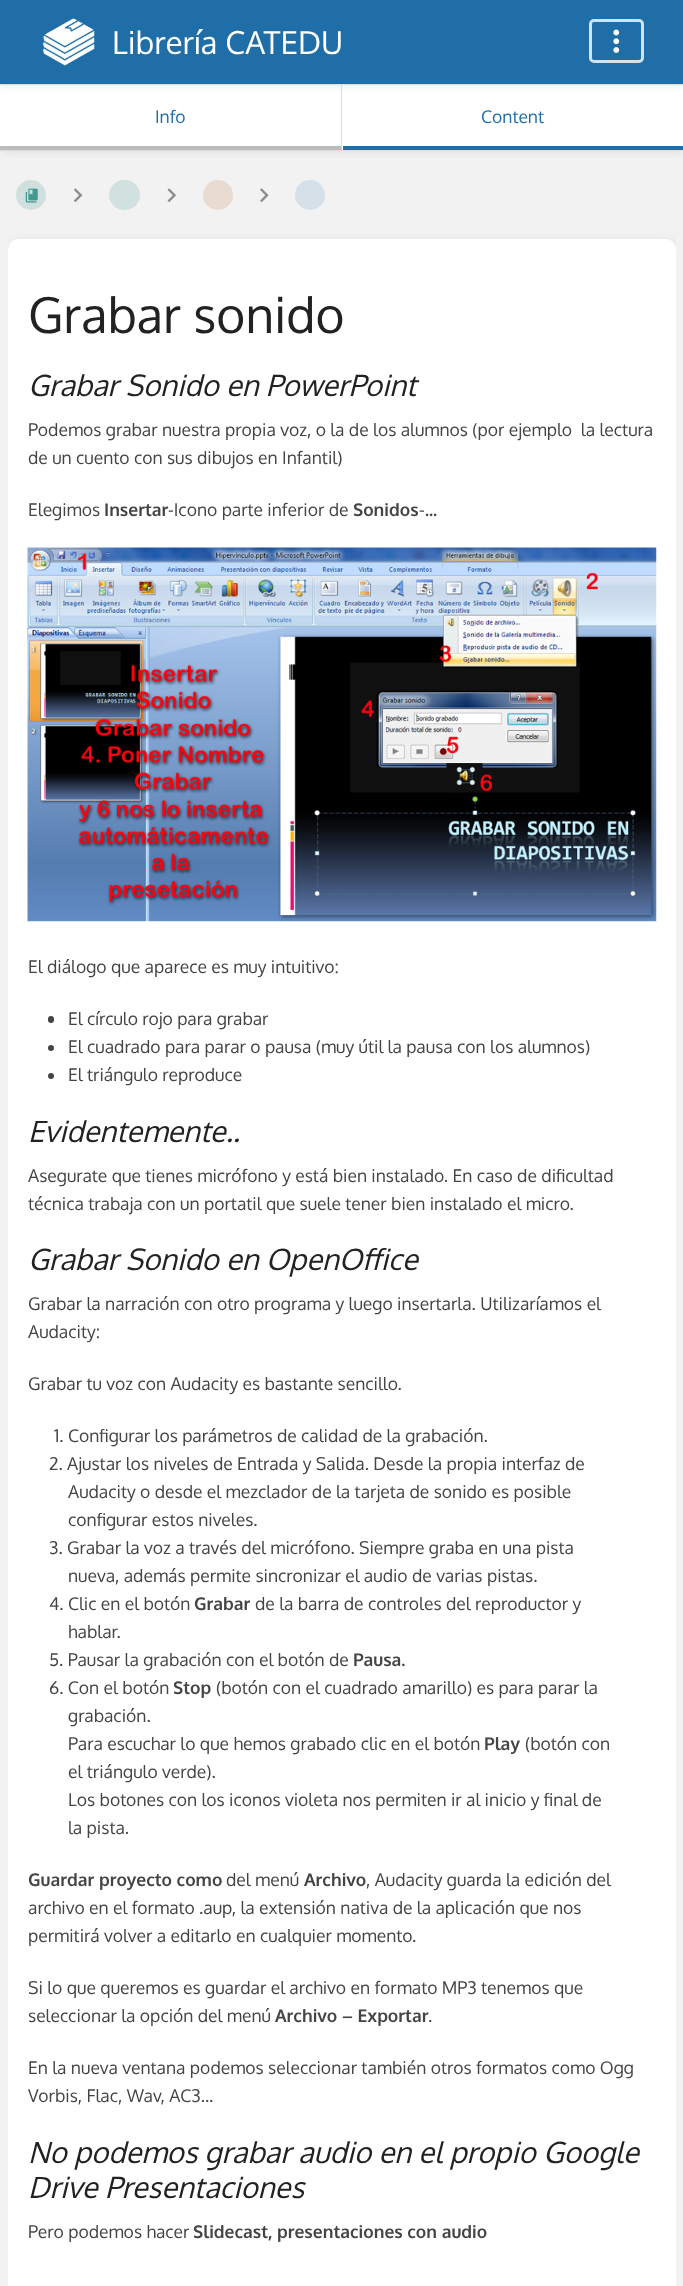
async function draw(canvas) {
  canvas.width = 683;
  canvas.height = 2286;
  const ctx = canvas.getContext('2d');
  ctx.miterLimit = 4;
  ctx.fontKerning = 'normal';
  function label(s, x, y, font, color) {
    ctx.font = font;
    ctx.fillStyle = color;
    ctx.fillText(s, x, y);
  }
  function rect(x, y, w, h, color) {
    ctx.fillStyle = color;
    ctx.fillRect(x, y, w, h);
  }
  function roundedRect(x, y, w, h, r, color) {
    ctx.fillStyle = color;
    ctx.beginPath();
    ctx.roundRect(x, y, w, h, r);
    ctx.fill();
  }
  async function image(src, x, y, w, h) {
    const img = new Image();
    img.src = src;
    await img.decode();
    ctx.drawImage(img, x, y, w, h);
  }
  let path;

  rect(0, 0, 683, 2286, '#f2f2f2');
  ctx.fillStyle = '#0000001a';
  ctx.filter = 'blur(4px)';
  ctx.beginPath();
  ctx.rect(1, 88, 682, 63);
  ctx.fill();
  ctx.filter = 'none';
  rect(0, 85, 683, 65, '#fff');
  ctx.fillStyle = '#ddd';
  path = new Path2D('M342 85V150L341 146V85Z');
  ctx.fill(path);
  ctx.fillStyle = '#0000001a';
  ctx.filter = 'blur(4px)';
  ctx.beginPath();
  ctx.rect(1, 3, 682, 82);
  ctx.fill();
  ctx.filter = 'none';
  rect(0, 0, 683, 84, '#206ea7');
  rect(0, 84, 683, 1, '#ddd');
  await image('assets/img1.png', 42, 18, 53, 48);
  label('Librería CATEDU', 112, 54, '31.5px Oxygen', '#fff');
  ctx.beginPath();
  ctx.roundRect(590.5, 20.5, 52, 41, 3.5);
  ctx.strokeStyle = '#d2e2ed';
  ctx.lineWidth = 3;
  ctx.stroke();
  await image('assets/img2.png', 613, 29, 7, 24);
  rect(0, 150, 683, 1, '#ddd');
  ctx.fillStyle = '#bbb';
  path = new Path2D('M342 150H0V146H341Z');
  ctx.fill(path);
  label('Info', 155, 123, '17.5px Oxygen', '#206ea7');
  rect(343, 146, 340, 4, '#206ea7');
  label('Content', 481, 123, '17.5px Oxygen', '#206ea7');
  await image('assets/img3.png', 25, 188, 13, 15);
  ctx.fillStyle = '#077b7024';
  ctx.beginPath();
  ctx.arc(31, 195, 15, 0, 2 * Math.PI);
  ctx.fill();
  await image('assets/img4.png', 73, 188, 10, 15);
  roundedRect(109, 180, 31, 30, 15, '#d1e1e0');
  await image('assets/img5.png', 167, 188, 9, 15);
  ctx.fillStyle = '#e9dbd2';
  ctx.beginPath();
  ctx.arc(218, 195, 15, 0, 2 * Math.PI);
  ctx.fill();
  await image('assets/img6.png', 260, 188, 9, 15);
  ctx.fillStyle = '#d5e0e8';
  ctx.beginPath();
  ctx.arc(310, 195, 15, 0, 2 * Math.PI);
  ctx.fill();
  ctx.save();
  ctx.beginPath();
  ctx.rect(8, 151, 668, 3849);
  ctx.clip();
  ctx.fillStyle = '#0000001a';
  ctx.filter = 'blur(4px)';
  ctx.beginPath();
  ctx.roundRect(9, 241, 666, 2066, 9);
  ctx.fill();
  ctx.filter = 'none';
  ctx.restore();
  roundedRect(8, 239, 668, 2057, 10, '#fff');
  label('Grabar sonido', 28, 333, '49.5px Oxygen', '#222');
  label('Grabar Sonido en PowerPoint', 28, 396, 'italic 29.2px Oxygen', '#222');
  label('Podemos grabar nuestra propia voz, o la de los alumnos (por ejemplo  la lectura', 28, 436, '17.5px Oxygen', '#444');
  label('de un cuento con sus dibujos en Infantil)', 28, 464, '17.5px Oxygen', '#444');
  label('Elegimos', 28, 516, '17.5px Oxygen', '#444');
  label('Insertar', 104, 516, 'bold 17.5px Oxygen', '#444');
  label('-Icono parte inferior de', 168, 516, '17.5px Oxygen', '#444');
  label('Sonidos', 353, 516, 'bold 17.5px Oxygen', '#444');
  label('-', 419, 516, '17.5px Oxygen', '#444');
  label('...', 425, 516, 'bold 17.5px Oxygen', '#444');
  await image('assets/img7.png', 27, 547, 630, 375);
  label('El diálogo que aparece es muy intuitivo:', 28, 973, '17.5px Oxygen', '#444');
  roundedRect(48, 1016, 6, 7, 3, '#444');
  label('El círculo rojo para grabar', 68, 1025, '17.5px Oxygen', '#444');
  ctx.beginPath();
  ctx.arc(51, 1048, 3, 0, 2 * Math.PI);
  ctx.fill();
  label('El cuadrado para parar o pausa (muy útil la pausa con los alumnos)', 68, 1053, '17.5px Oxygen', '#444');
  ctx.beginPath();
  ctx.arc(51, 1076, 3, 0, 2 * Math.PI);
  ctx.fill();
  label('El triángulo reproduce', 68, 1081, '17.5px Oxygen', '#444');
  label('Evidentemente..', 28, 1142, 'italic 29.2px Oxygen', '#222');
  label('Asegurate que tienes micrófono y está bien instalado. En caso de dificultad', 28, 1182, '17.5px Oxygen', '#444');
  label('técnica trabaja con un portatil que suele tener bien instalado el micro.', 28, 1210, '17.5px Oxygen', '#444');
  label('Grabar Sonido en OpenOffice', 28, 1270, 'italic 29.2px Oxygen', '#222');
  label('Grabar la narración con otro programa y luego insertarla. Utilizaríamos el', 28, 1310, '17.5px Oxygen', '#444');
  label('Audacity:', 28, 1338, '17.5px Oxygen', '#444');
  label('Grabar tu voz con Audacity es bastante sencillo.', 28, 1390, '17.5px Oxygen', '#444');
  label('1. Configurar los parámetros de calidad de la grabación.', 54, 1442, '17.5px Oxygen', '#444');
  label('2. Ajustar los niveles de Entrada y Salida. Desde la propia interfaz de', 49, 1470, '17.5px Oxygen', '#444');
  label('Audacity o desde el mezclador de la tarjeta de sonido es posible', 68, 1498, '17.5px Oxygen', '#444');
  label('configurar estos niveles.', 68, 1526, '17.5px Oxygen', '#444');
  label('3. Grabar la voz a través del micrófono. Siempre graba en una pista', 49, 1554, '17.5px Oxygen', '#444');
  label('nueva, además permite sincronizar el audio de varias pistas.', 68, 1582, '17.5px Oxygen', '#444');
  label('4. Clic en el botón', 49, 1610, '17.5px Oxygen', '#444');
  label('Grabar', 194, 1610, 'bold 17.5px Oxygen', '#444');
  label('de la barra de controles del reproductor y', 255, 1610, '17.5px Oxygen', '#444');
  label('hablar.', 68, 1638, '17.5px Oxygen', '#444');
  label('5. Pausar la grabación con el botón de', 49, 1666, '17.5px Oxygen', '#444');
  label('Pausa.', 353, 1666, 'bold 17.5px Oxygen', '#444');
  label('6. Con el botón', 49, 1694, '17.5px Oxygen', '#444');
  label('Stop', 173, 1694, 'bold 17.5px Oxygen', '#444');
  label('(botón con el cuadrado amarillo) es para parar la', 216, 1694, '17.5px Oxygen', '#444');
  label('grabación.', 68, 1722, '17.5px Oxygen', '#444');
  label('Para escuchar lo que hemos grabado clic en el botón', 68, 1750, '17.5px Oxygen', '#444');
  label('Play', 484, 1750, 'bold 17.5px Oxygen', '#444');
  label('(botón con', 525, 1750, '17.5px Oxygen', '#444');
  label('el triángulo verde).', 68, 1778, '17.5px Oxygen', '#444');
  label('Los botones con los iconos violeta nos permiten ir al inicio y final de', 68, 1806, '17.5px Oxygen', '#444');
  label('la pista.', 68, 1834, '17.5px Oxygen', '#444');
  label('Guardar proyecto como', 28, 1886, 'bold 17.5px Oxygen', '#444');
  label('del menú', 226, 1886, '17.5px Oxygen', '#444');
  label('Archivo', 304, 1886, 'bold 17.5px Oxygen', '#444');
  label(', Audacity guarda la edición del', 366, 1886, '17.5px Oxygen', '#444');
  label('archivo en el formato .aup, la extensión nativa de la aplicación que nos', 28, 1914, '17.5px Oxygen', '#444');
  label('permitirá volver a editarlo en cualquier momento.', 28, 1942, '17.5px Oxygen', '#444');
  label('Si lo que queremos es guardar el archivo en formato MP3 tenemos que', 28, 1994, '17.5px Oxygen', '#444');
  label('seleccionar la opción del menú', 28, 2022, '17.5px Oxygen', '#444');
  label('Archivo – Exportar', 275, 2022, 'bold 17.5px Oxygen', '#444');
  label('.', 428, 2022, '17.5px Oxygen', '#444');
  label('En la nueva ventana podemos seleccionar también otros formatos como Ogg', 28, 2074, '17.5px Oxygen', '#444');
  label('Vorbis, Flac, Wav, AC3...', 28, 2102, '17.5px Oxygen', '#444');
  label('No podemos grabar audio en el propio Google', 28, 2163, 'italic 29.2px Oxygen', '#222');
  label('Drive Presentaciones', 28, 2198, 'italic 29.2px Oxygen', '#222');
  label('Pero podemos hacer', 28, 2238, '17.5px Oxygen', '#444');
  label('Slidecast, presentaciones con audio', 193, 2238, 'bold 17.5px Oxygen', '#444');
}

draw(document.querySelector('canvas'));
